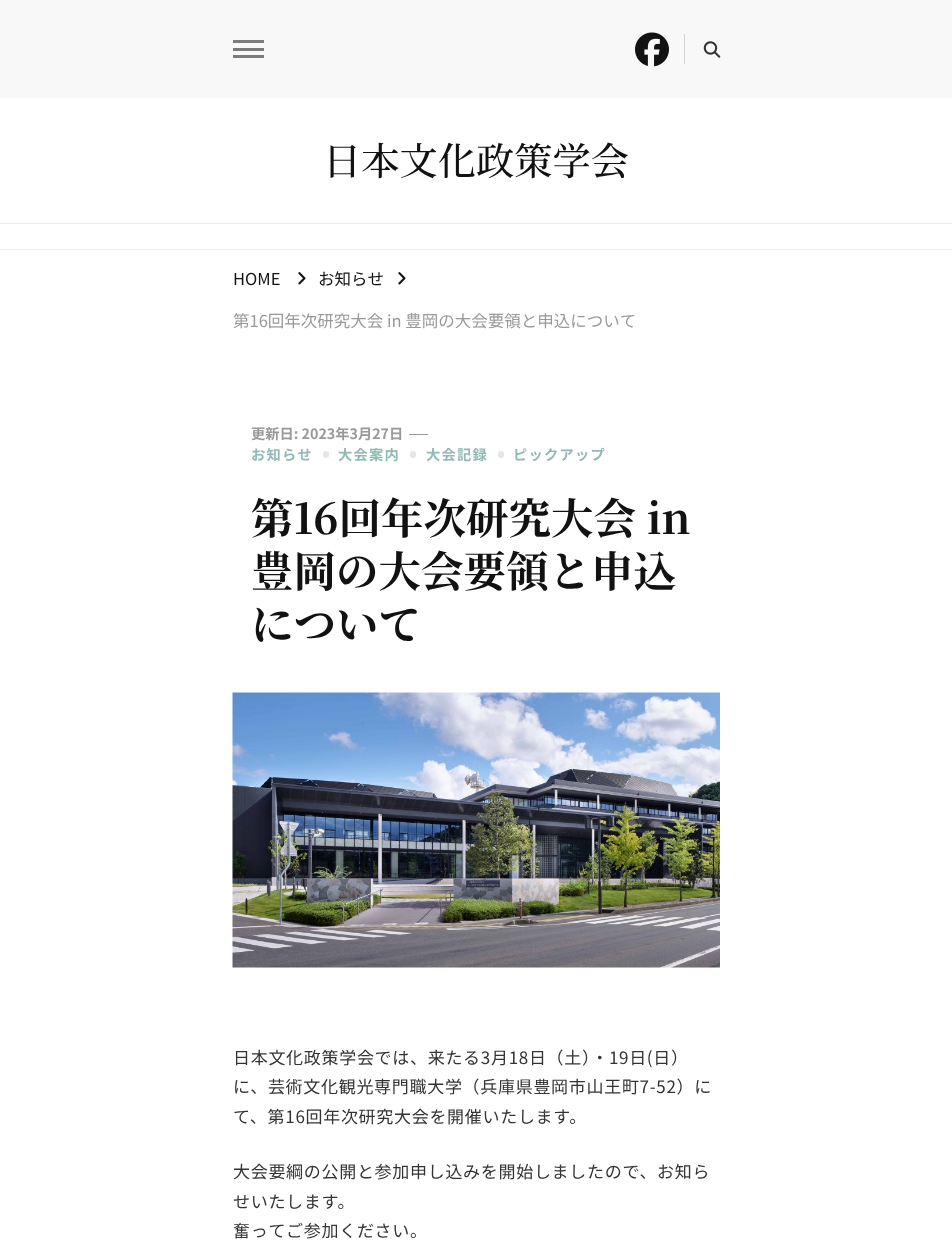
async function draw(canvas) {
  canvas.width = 952;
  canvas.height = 1243;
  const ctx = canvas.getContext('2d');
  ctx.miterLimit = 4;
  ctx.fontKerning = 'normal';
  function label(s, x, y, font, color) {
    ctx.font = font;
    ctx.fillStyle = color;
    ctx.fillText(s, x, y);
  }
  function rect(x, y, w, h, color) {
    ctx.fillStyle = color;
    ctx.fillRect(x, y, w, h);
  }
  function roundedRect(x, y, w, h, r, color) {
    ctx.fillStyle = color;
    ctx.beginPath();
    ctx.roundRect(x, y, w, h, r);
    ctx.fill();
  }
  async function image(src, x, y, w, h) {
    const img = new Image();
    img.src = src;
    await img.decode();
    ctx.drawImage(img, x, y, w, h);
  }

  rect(0, 0, 952, 1243, '#fff');
  rect(0, 0, 952, 98, '#f8f8f8');
  rect(233, 40, 31, 3, '#7c7c7c');
  rect(233, 48, 31, 3, '#7c7c7c');
  rect(233, 55, 31, 3, '#7c7c7c');
  await image('assets/img1.png', 635, 32, 34, 35);
  rect(684, 34, 1, 30, '#d3d3d3');
  await image('assets/img2.png', 703, 41, 18, 17);
  label('日本文化政策学会', 323, 175, '500 38.25px Noto Serif JP', '#121212');
  rect(0, 223, 952, 1, '#ededed');
  rect(0, 249, 952, 1, '#ededed');
  label('HOME', 233, 285, '16.5px Noto Sans JP', '#121212');
  await image('assets/img3.png', 298, 272, 8, 13);
  label('お知らせ', 318, 285, '16.5px Noto Sans JP', '#121212');
  await image('assets/img3.png', 398, 272, 8, 13);
  label('第16回年次研究大会 in 豊岡の大会要領と申込について', 233, 327, '16.5px Noto Sans JP', '#999');
  label('更新日: 2023年3月27日', 251, 439, 'bold 14.25px Noto Sans JP', '#999');
  rect(409, 434, 19, 1, '#999');
  ctx.letterSpacing = '1.25px';
  label('お知らせ', 251, 460, 'bold 14.25px Noto Sans JP', '#90bab5');
  roundedRect(323, 451, 6, 7, 3, '#e6e6e6');
  label('大会案内', 338, 460, 'bold 14.25px Noto Sans JP', '#90bab5');
  roundedRect(410, 451, 6, 7, 3, '#e6e6e6');
  label('大会記録', 426, 460, 'bold 14.25px Noto Sans JP', '#90bab5');
  roundedRect(498, 451, 6, 7, 3, '#e6e6e6');
  label('ピックアップ', 513, 460, 'bold 14.25px Noto Sans JP', '#90bab5');
  ctx.letterSpacing = '0px';
  label('第16回年次研究大会 in', 251, 534, 'bold 42.5px Noto Serif JP', '#121212');
  label('豊岡の大会要領と申込', 251, 587, 'bold 42.5px Noto Serif JP', '#121212');
  label('について', 251, 640, 'bold 42.5px Noto Serif JP', '#121212');
  await image('assets/img4.png', 232, 692, 488, 276);
  ctx.letterSpacing = '0.7px';
  label('日本文化政策学会では、来たる3月18日（土）・19日(日）', 233, 1064, '17px Noto Sans JP', '#333');
  label('に、芸術文化観光専門職大学（兵庫県豊岡市山王町7-52）に', 233, 1093, '17px Noto Sans JP', '#333');
  label('て、第16回年次研究大会を開催いたします。', 233, 1123, '17px Noto Sans JP', '#333');
  label('大会要綱の公開と参加申し込みを開始しましたので、お知ら', 233, 1178, '17px Noto Sans JP', '#333');
  label('せいたします。', 233, 1208, '17px Noto Sans JP', '#333');
  label('奮ってご参加ください。', 233, 1237, '17px Noto Sans JP', '#333');
}

draw(document.querySelector('canvas'));
